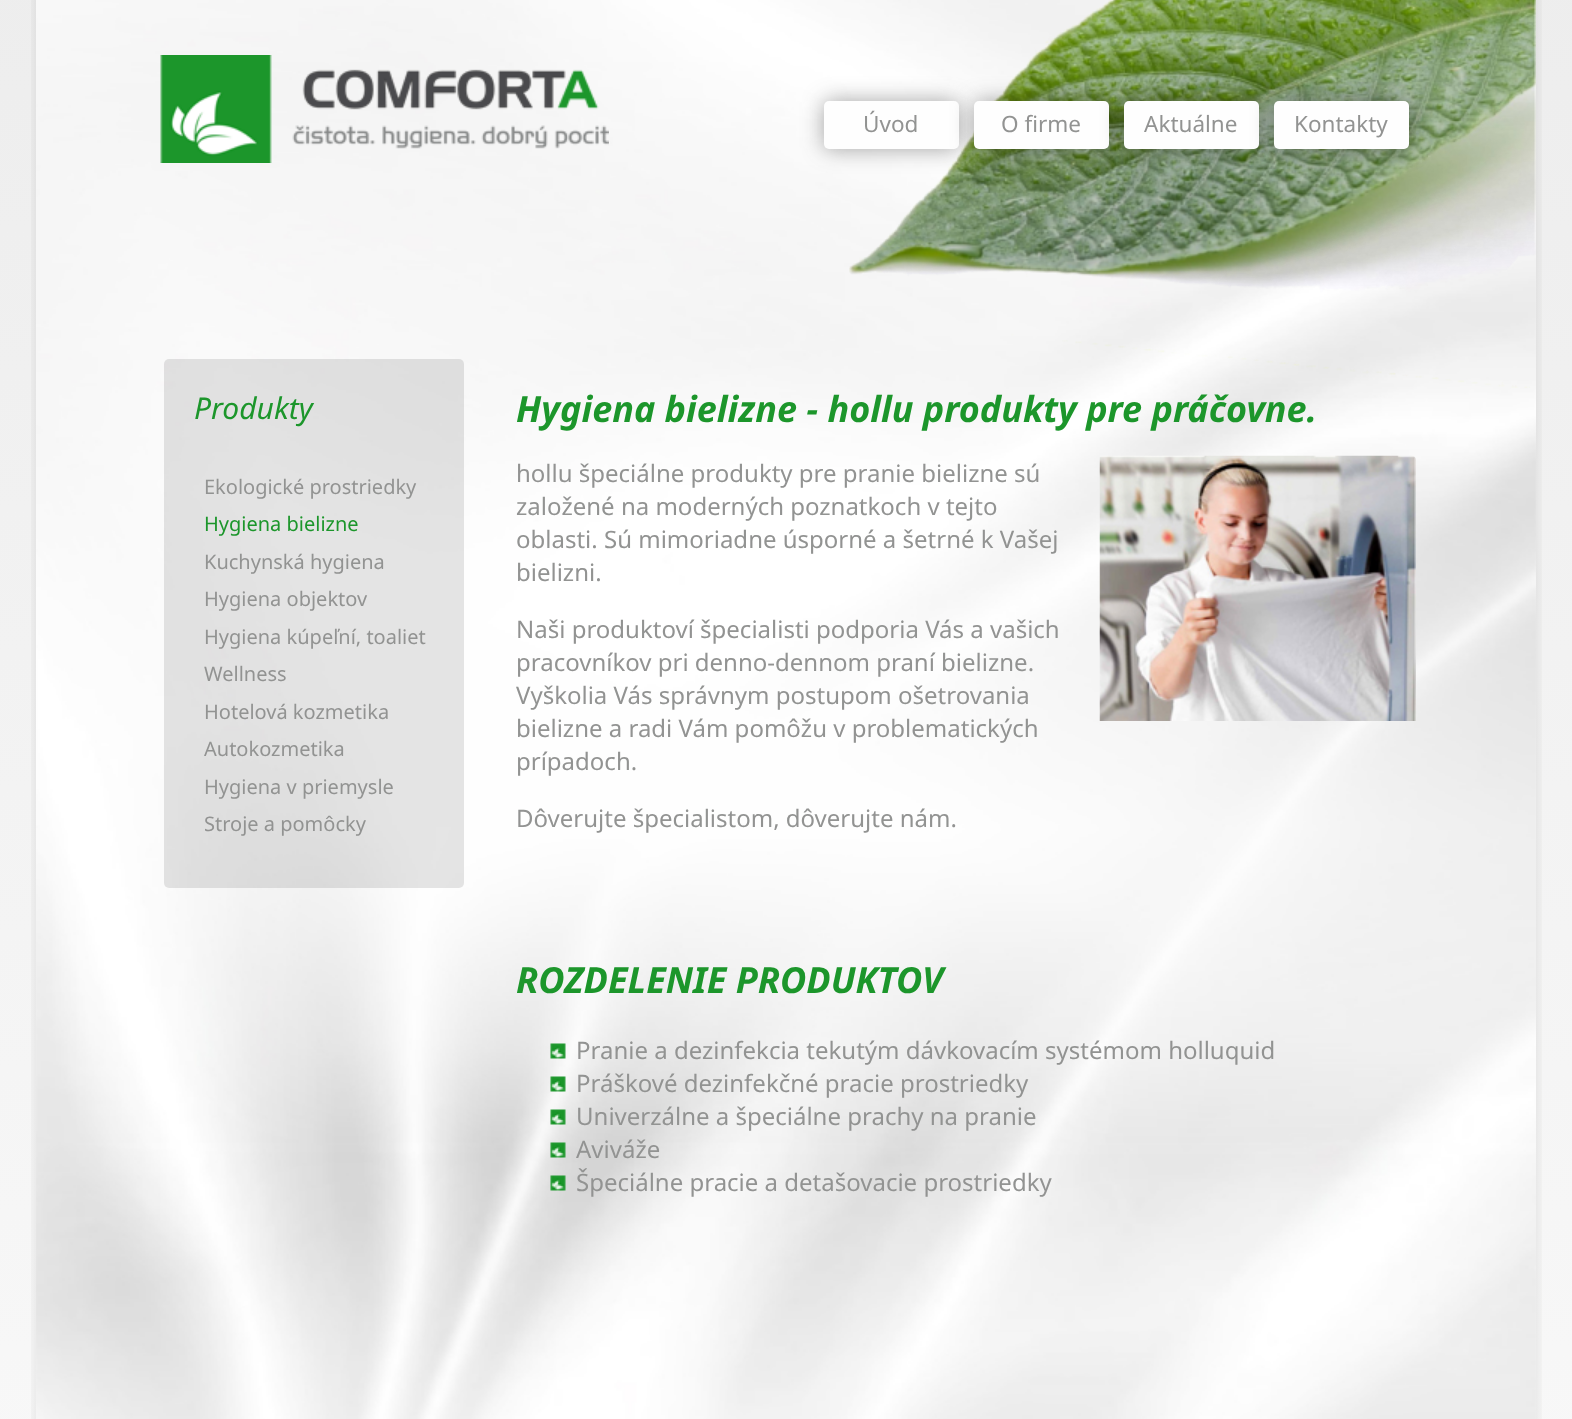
async function draw(canvas) {
  canvas.width = 1572;
  canvas.height = 1419;
  const ctx = canvas.getContext('2d');
  ctx.miterLimit = 4;
  ctx.fontKerning = 'normal';
  function label(s, x, y, font, color) {
    ctx.font = font;
    ctx.fillStyle = color;
    ctx.fillText(s, x, y);
  }
  function rect(x, y, w, h, color) {
    ctx.fillStyle = color;
    ctx.fillRect(x, y, w, h);
  }
  function roundedRect(x, y, w, h, r, color) {
    ctx.fillStyle = color;
    ctx.beginPath();
    ctx.roundRect(x, y, w, h, r);
    ctx.fill();
  }
  async function image(src, x, y, w, h) {
    const img = new Image();
    img.src = src;
    await img.decode();
    ctx.drawImage(img, x, y, w, h);
  }
  let gradient;

  rect(0, 0, 1572, 1419, '#fff');
  gradient = ctx.createLinearGradient(786, -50, 786, 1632);
  gradient.addColorStop(0, '#ededed');
  gradient.addColorStop(1, '#f9f9f9');
  ctx.fillStyle = gradient;
  ctx.fillRect(0, 0, 1572, 1419);
  await image('assets/img1.png', 31, 0, 1511, 1419);
  await image('assets/img2.png', 36, 0, 1500, 1419);
  await image('assets/img3.png', 849, 0, 687, 388);
  await image('assets/img4.png', 160, 55, 449, 108);
  ctx.fillStyle = '#32323273';
  ctx.filter = 'blur(11px)';
  ctx.beginPath();
  ctx.roundRect(824, 101, 135, 48, 5);
  ctx.fill();
  ctx.filter = 'none';
  roundedRect(824, 101, 135, 48, 5, '#fefefe');
  label('Úvod', 863, 132, '22.5px Noto Sans', '#929392');
  ctx.fillStyle = '#32323273';
  ctx.filter = 'blur(11px)';
  ctx.beginPath();
  ctx.roundRect(974, 101, 135, 48, 5);
  ctx.fill();
  ctx.filter = 'none';
  roundedRect(974, 101, 135, 48, 5, '#fefefe');
  label('O firme', 1001, 132, '22.5px Noto Sans', '#929392');
  ctx.fillStyle = '#32323273';
  ctx.filter = 'blur(11px)';
  ctx.beginPath();
  ctx.roundRect(1124, 101, 135, 48, 5);
  ctx.fill();
  ctx.filter = 'none';
  roundedRect(1124, 101, 135, 48, 5, '#fefefe');
  label('Aktuálne', 1144, 132, '22.5px Noto Sans', '#929392');
  ctx.fillStyle = '#32323273';
  ctx.filter = 'blur(11px)';
  ctx.beginPath();
  ctx.roundRect(1274, 101, 135, 48, 5);
  ctx.fill();
  ctx.filter = 'none';
  roundedRect(1274, 101, 135, 48, 5, '#fefefe');
  label('Kontakty', 1294, 132, '22.5px Noto Sans', '#929392');
  roundedRect(164, 359, 300, 529, 5, '#0000001a');
  label('Produkty', 194, 419, 'italic 30px Noto Sans', '#1c962b');
  label('Ekologické prostriedky', 204, 494, '20px Noto Sans', '#929392');
  label('Hygiena bielizne', 204, 531, '20px Noto Sans', '#1c962b');
  label('Kuchynská hygiena', 204, 569, '20px Noto Sans', '#929392');
  label('Hygiena objektov', 204, 606, '20px Noto Sans', '#929392');
  label('Hygiena kúpeľní, toaliet', 204, 644, '20px Noto Sans', '#929392');
  label('Wellness', 204, 681, '20px Noto Sans', '#929392');
  label('Hotelová kozmetika', 204, 719, '20px Noto Sans', '#929392');
  label('Autokozmetika', 204, 756, '20px Noto Sans', '#929392');
  label('Hygiena v priemysle', 204, 794, '20px Noto Sans', '#929392');
  label('Stroje a pomôcky', 204, 831, '20px Noto Sans', '#929392');
  label('Hygiena bielizne - hollu produkty pre práčovne.', 516, 422, 'italic bold 36px Noto Sans', '#1c962b');
  label('hollu špeciálne produkty pre pranie bielizne sú', 516, 482, '24px Noto Sans', '#929392');
  label('založené na moderných poznatkoch v tejto', 516, 515, '24px Noto Sans', '#929392');
  label('oblasti. Sú mimoriadne úsporné a šetrné k Vašej', 516, 548, '24px Noto Sans', '#929392');
  label('bielizni.', 516, 581, '24px Noto Sans', '#929392');
  await image('assets/img5.png', 1099, 455, 317, 266);
  label('Naši produktoví špecialisti podporia Vás a vašich', 516, 638, '24px Noto Sans', '#929392');
  label('pracovníkov pri denno-dennom praní bielizne.', 516, 671, '24px Noto Sans', '#929392');
  label('Vyškolia Vás správnym postupom ošetrovania', 516, 704, '24px Noto Sans', '#929392');
  label('bielizne a radi Vám pomôžu v problematických', 516, 737, '24px Noto Sans', '#929392');
  label('prípadoch.', 516, 770, '24px Noto Sans', '#929392');
  label('Dôverujte špecialistom, dôverujte nám.', 516, 827, '24px Noto Sans', '#929392');
  label('ROZDELENIE PRODUKTOV', 516, 993, 'italic bold 36px Noto Sans', '#1c962b');
  await image('assets/img6.png', 550, 1043, 16, 16);
  label('Pranie a dezinfekcia tekutým dávkovacím systémom holluquid', 576, 1059, '24px Noto Sans', '#929392');
  await image('assets/img7.png', 550, 1076, 16, 16);
  label('Práškové dezinfekčné pracie prostriedky', 576, 1092, '24px Noto Sans', '#929392');
  await image('assets/img8.png', 550, 1109, 16, 16);
  label('Univerzálne a špeciálne prachy na pranie', 576, 1125, '24px Noto Sans', '#929392');
  await image('assets/img9.png', 550, 1142, 16, 16);
  label('Aviváže', 576, 1158, '24px Noto Sans', '#929392');
  await image('assets/img10.png', 550, 1175, 16, 16);
  label('Špeciálne pracie a detašovacie prostriedky', 576, 1191, '24px Noto Sans', '#929392');
}

draw(document.querySelector('canvas'));
